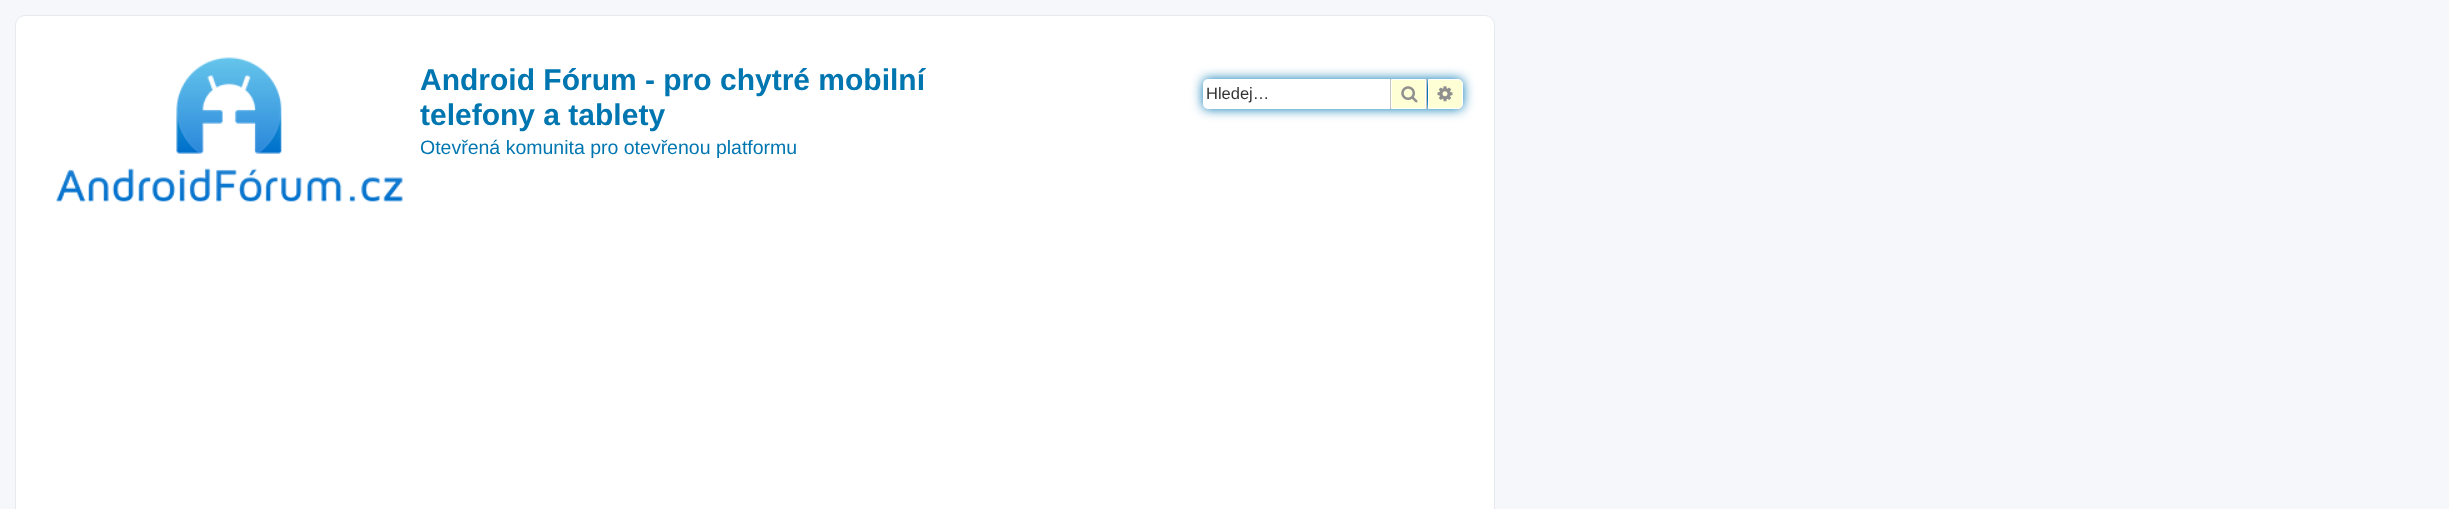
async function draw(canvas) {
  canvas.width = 2449;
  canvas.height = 509;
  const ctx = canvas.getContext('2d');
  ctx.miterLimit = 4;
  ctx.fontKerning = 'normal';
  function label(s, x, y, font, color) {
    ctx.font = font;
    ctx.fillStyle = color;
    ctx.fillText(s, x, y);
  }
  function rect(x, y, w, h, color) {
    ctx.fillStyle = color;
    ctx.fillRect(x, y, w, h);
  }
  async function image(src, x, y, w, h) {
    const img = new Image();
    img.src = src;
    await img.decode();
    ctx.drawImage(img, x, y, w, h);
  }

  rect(0, 0, 2449, 509, '#f5f7fa');
  ctx.fillStyle = '#fff';
  ctx.beginPath();
  ctx.roundRect(15.5, 15.5, 1479, 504, 9.5);
  ctx.fill();
  ctx.strokeStyle = '#e6e9ed';
  ctx.stroke();
  await image('assets/img1.png', 56, 57, 347, 145);
  label('Android Fórum - pro chytré mobilní', 420, 90, 'bold 30px Liberation Sans', '#0076b1');
  label('telefony a tablety', 420, 125, 'bold 30px Liberation Sans', '#0076b1');
  label('Otevřená komunita pro otevřenou platformu', 420, 154, '19.5px Liberation Sans', '#0076b1');
  ctx.fillStyle = '#0075b0';
  ctx.filter = 'blur(6px)';
  ctx.beginPath();
  ctx.roundRect(1203, 79, 260, 30, 5);
  ctx.fill();
  ctx.filter = 'none';
  ctx.fillStyle = '#fff';
  ctx.beginPath();
  ctx.roundRect(1203, 79, 187, 30, [5, 0, 0, 5]);
  ctx.fill();
  label('Hledej…', 1206, 99, '16.5px Liberation Sans', '#333');
  ctx.fillStyle = '#ffffd6';
  ctx.beginPath();
  ctx.rect(1391.5, 79.5, 34, 29);
  ctx.fill();
  ctx.strokeStyle = '#fff';
  ctx.stroke();
  rect(1426, 79, 1, 30, '#c7c3bf');
  rect(1390, 79, 1, 30, '#c7c3bf');
  await image('assets/img2.png', 1401, 86, 17, 17);
  ctx.fillStyle = '#ffffd6';
  ctx.beginPath();
  ctx.roundRect(1428.5, 79.5, 34, 29, [0, 4.5, 4.5, 0]);
  ctx.fill();
  ctx.stroke();
  await image('assets/img3.png', 1437, 86, 16, 16);
}

draw(document.querySelector('canvas'));
